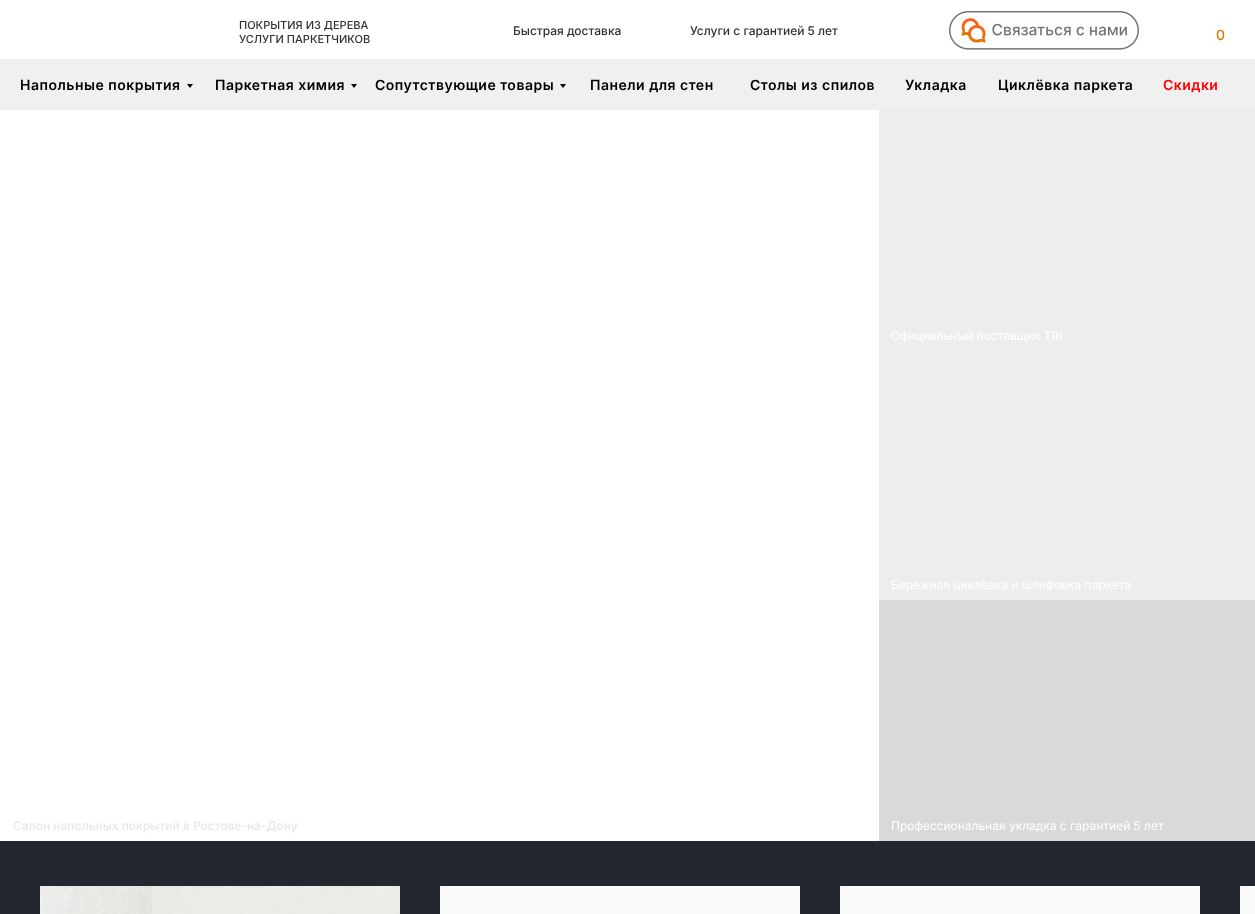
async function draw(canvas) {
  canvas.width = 1255;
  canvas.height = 914;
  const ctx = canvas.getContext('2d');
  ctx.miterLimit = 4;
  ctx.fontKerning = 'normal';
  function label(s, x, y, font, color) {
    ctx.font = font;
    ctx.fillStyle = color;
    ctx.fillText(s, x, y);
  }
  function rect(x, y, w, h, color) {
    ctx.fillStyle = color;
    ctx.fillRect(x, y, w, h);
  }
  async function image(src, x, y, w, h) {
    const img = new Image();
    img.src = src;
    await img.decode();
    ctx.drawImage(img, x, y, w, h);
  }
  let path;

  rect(0, 0, 1255, 914, '#fff');
  label('ПОКРЫТИЯ ИЗ ДЕРЕВА', 239, 29, '500 11px Inter', '#313131');
  label('УСЛУГИ ПАРКЕТЧИКОВ', 239, 43, '500 11px Inter', '#313131');
  label('Быстрая доставка', 513, 35, '500 12px Inter', '#313131');
  label('Услуги с гарантией 5 лет', 690, 35, '500 12px Inter', '#313131');
  await image('assets/img1.png', 949, 11, 190, 39);
  label('0', 1216, 40, '500 14px Inter', '#e07700');
  rect(0, 59, 1255, 51, '#f0f0f0');
  ctx.letterSpacing = '0.5px';
  label('Напольные покрытия', 20, 90, '600 14px Inter', '#000');
  path = new Path2D('M187 84H193L190 88Z');
  ctx.fill(path);
  label('Паркетная химия', 215, 90, '600 14px Inter', '#000');
  path = new Path2D('M351 84H357L354 88Z');
  ctx.fill(path);
  label('Сопутствующие товары', 375, 90, '600 14px Inter', '#000');
  path = new Path2D('M560 84H566L563 88Z');
  ctx.fill(path);
  label('Панели для стен', 590, 90, '600 14px Inter', '#000');
  label('Столы из спилов', 750, 90, '600 14px Inter', '#000');
  label('Укладка', 905, 90, '600 14px Inter', '#000');
  label('Циклёвка паркета', 998, 90, '600 14px Inter', '#000');
  label('Скидки', 1163, 90, '600 14px Inter', '#f00');
  rect(879, 110, 376, 490, '#ededed');
  ctx.letterSpacing = '0px';
  label('Официальный поставщик TRI', 891, 340, '12px Inter', '#fff');
  label('Бережная циклёвка и шлифовка паркета', 891, 589, '12px Inter', '#fff');
  label('Салон напольных покрытий в Ростове-на-Дону', 13, 830, '500 12px Inter', '#e8e8e8');
  rect(879, 600, 376, 241, '#dad9d9');
  label('Профессиональная укладка с гарантией 5 лет', 891, 830, '12px Inter', '#fff');
  rect(0, 841, 1255, 73, '#23272f');
  await image('assets/img2.png', 40, 886, 360, 28);
  rect(440, 886, 360, 28, '#f9f9fa');
  rect(840, 886, 360, 28, '#f9f9fa');
  rect(1240, 886, 15, 28, '#f9f9fa');
}

draw(document.querySelector('canvas'));
